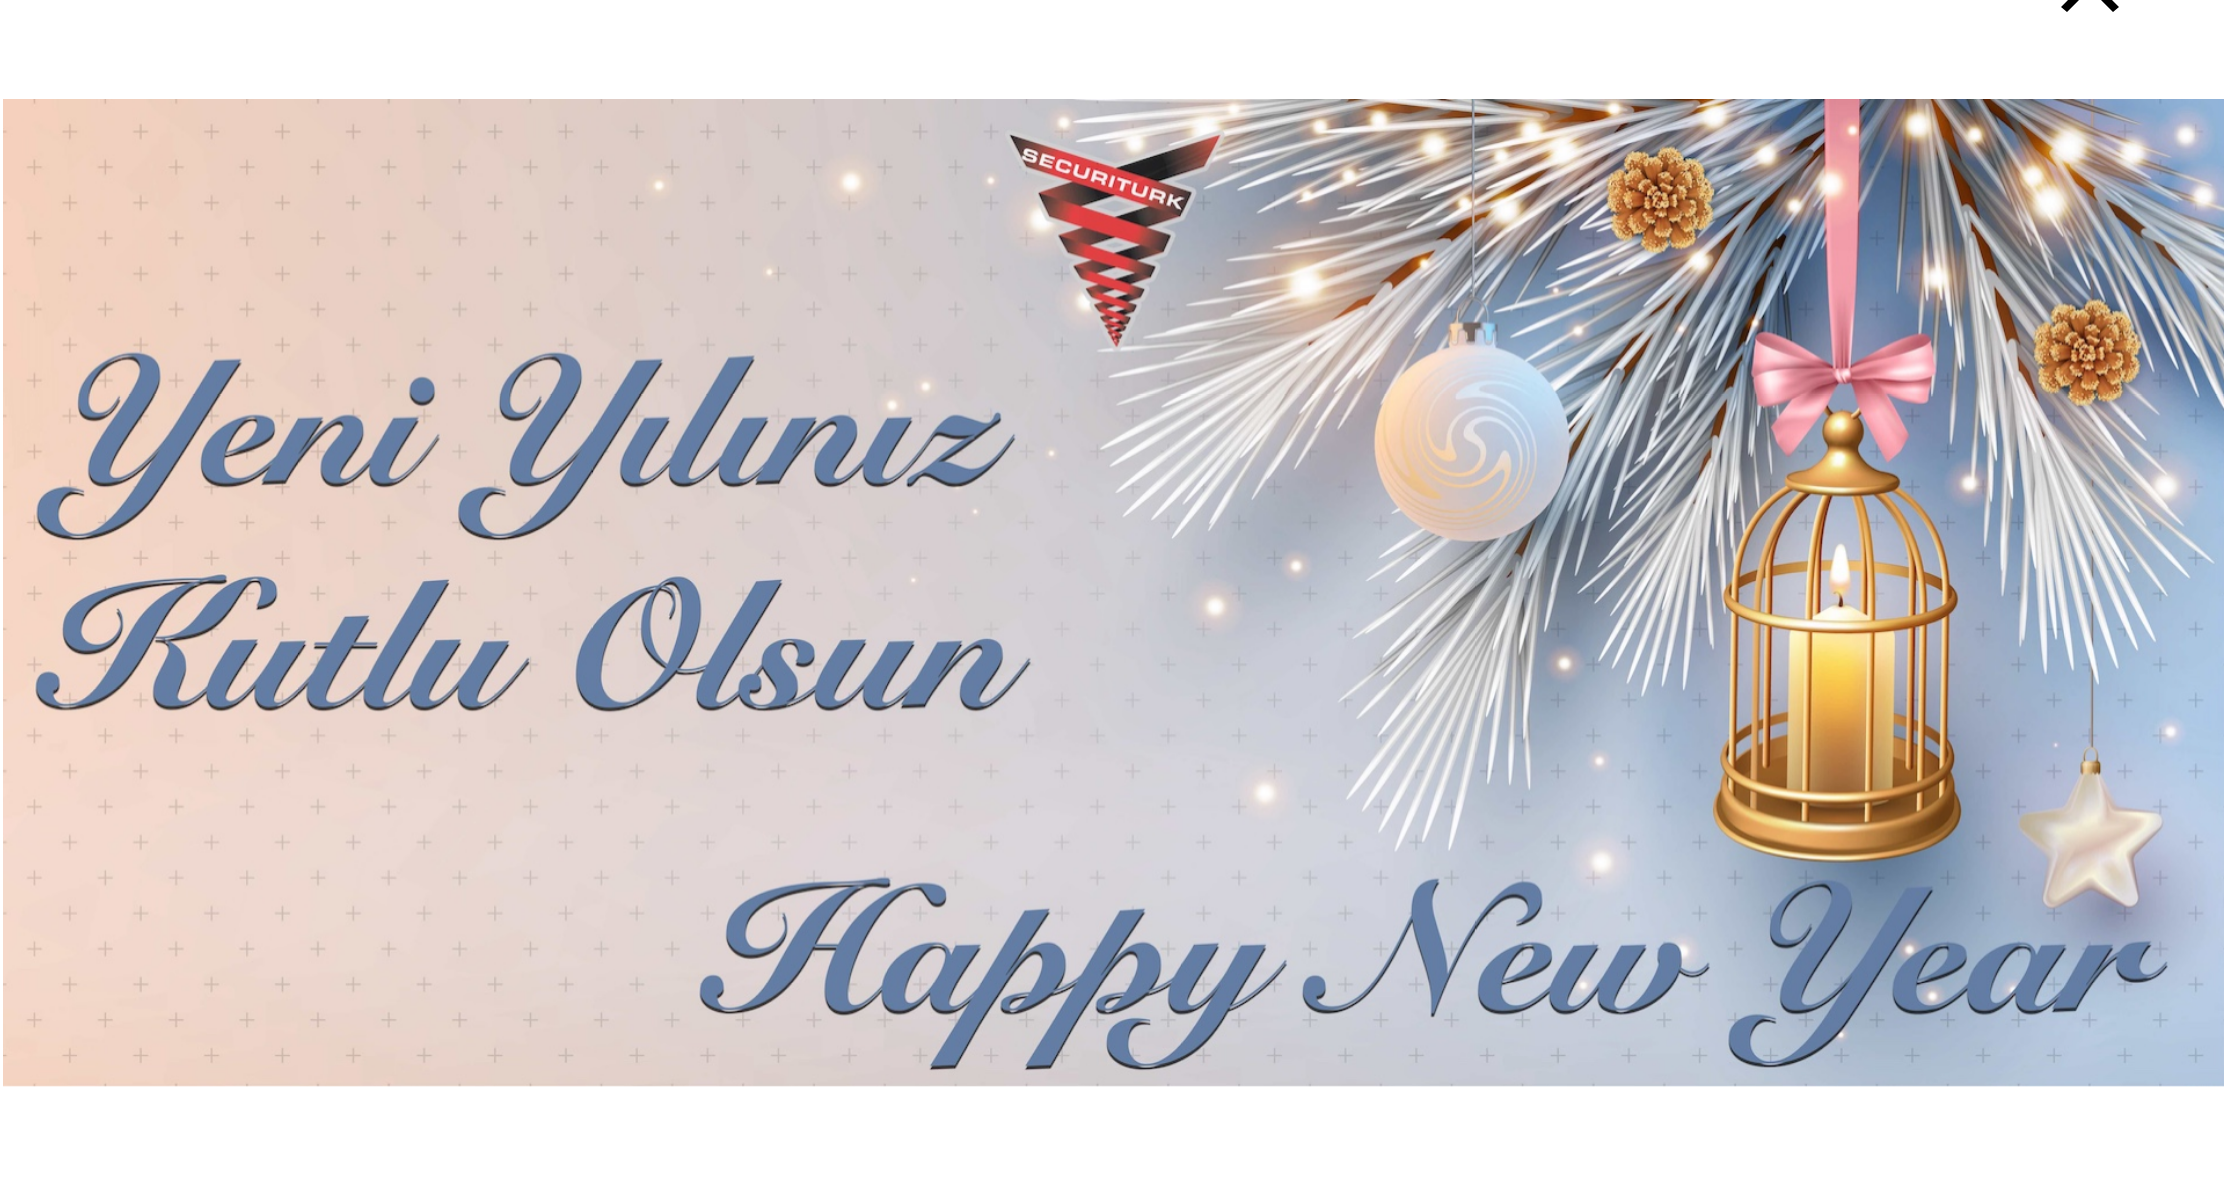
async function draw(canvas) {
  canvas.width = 2224;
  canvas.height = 1183;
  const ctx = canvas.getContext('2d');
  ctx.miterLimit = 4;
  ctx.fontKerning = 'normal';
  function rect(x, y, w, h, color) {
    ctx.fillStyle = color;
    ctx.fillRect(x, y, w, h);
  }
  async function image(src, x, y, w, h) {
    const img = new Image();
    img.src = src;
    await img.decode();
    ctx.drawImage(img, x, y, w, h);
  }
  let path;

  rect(0, 0, 2224, 1183, '#fff');
  ctx.fillStyle = '#000';
  path = new Path2D('M2119-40L2113-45L2090-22L2067-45L2061-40L2084-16L2061 7L2067 12L2090-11L2113 12L2119 7L2096-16Z');
  ctx.fill(path);
  await image('assets/img1.png', 3, 99, 2221, 988);
}

draw(document.querySelector('canvas'));
